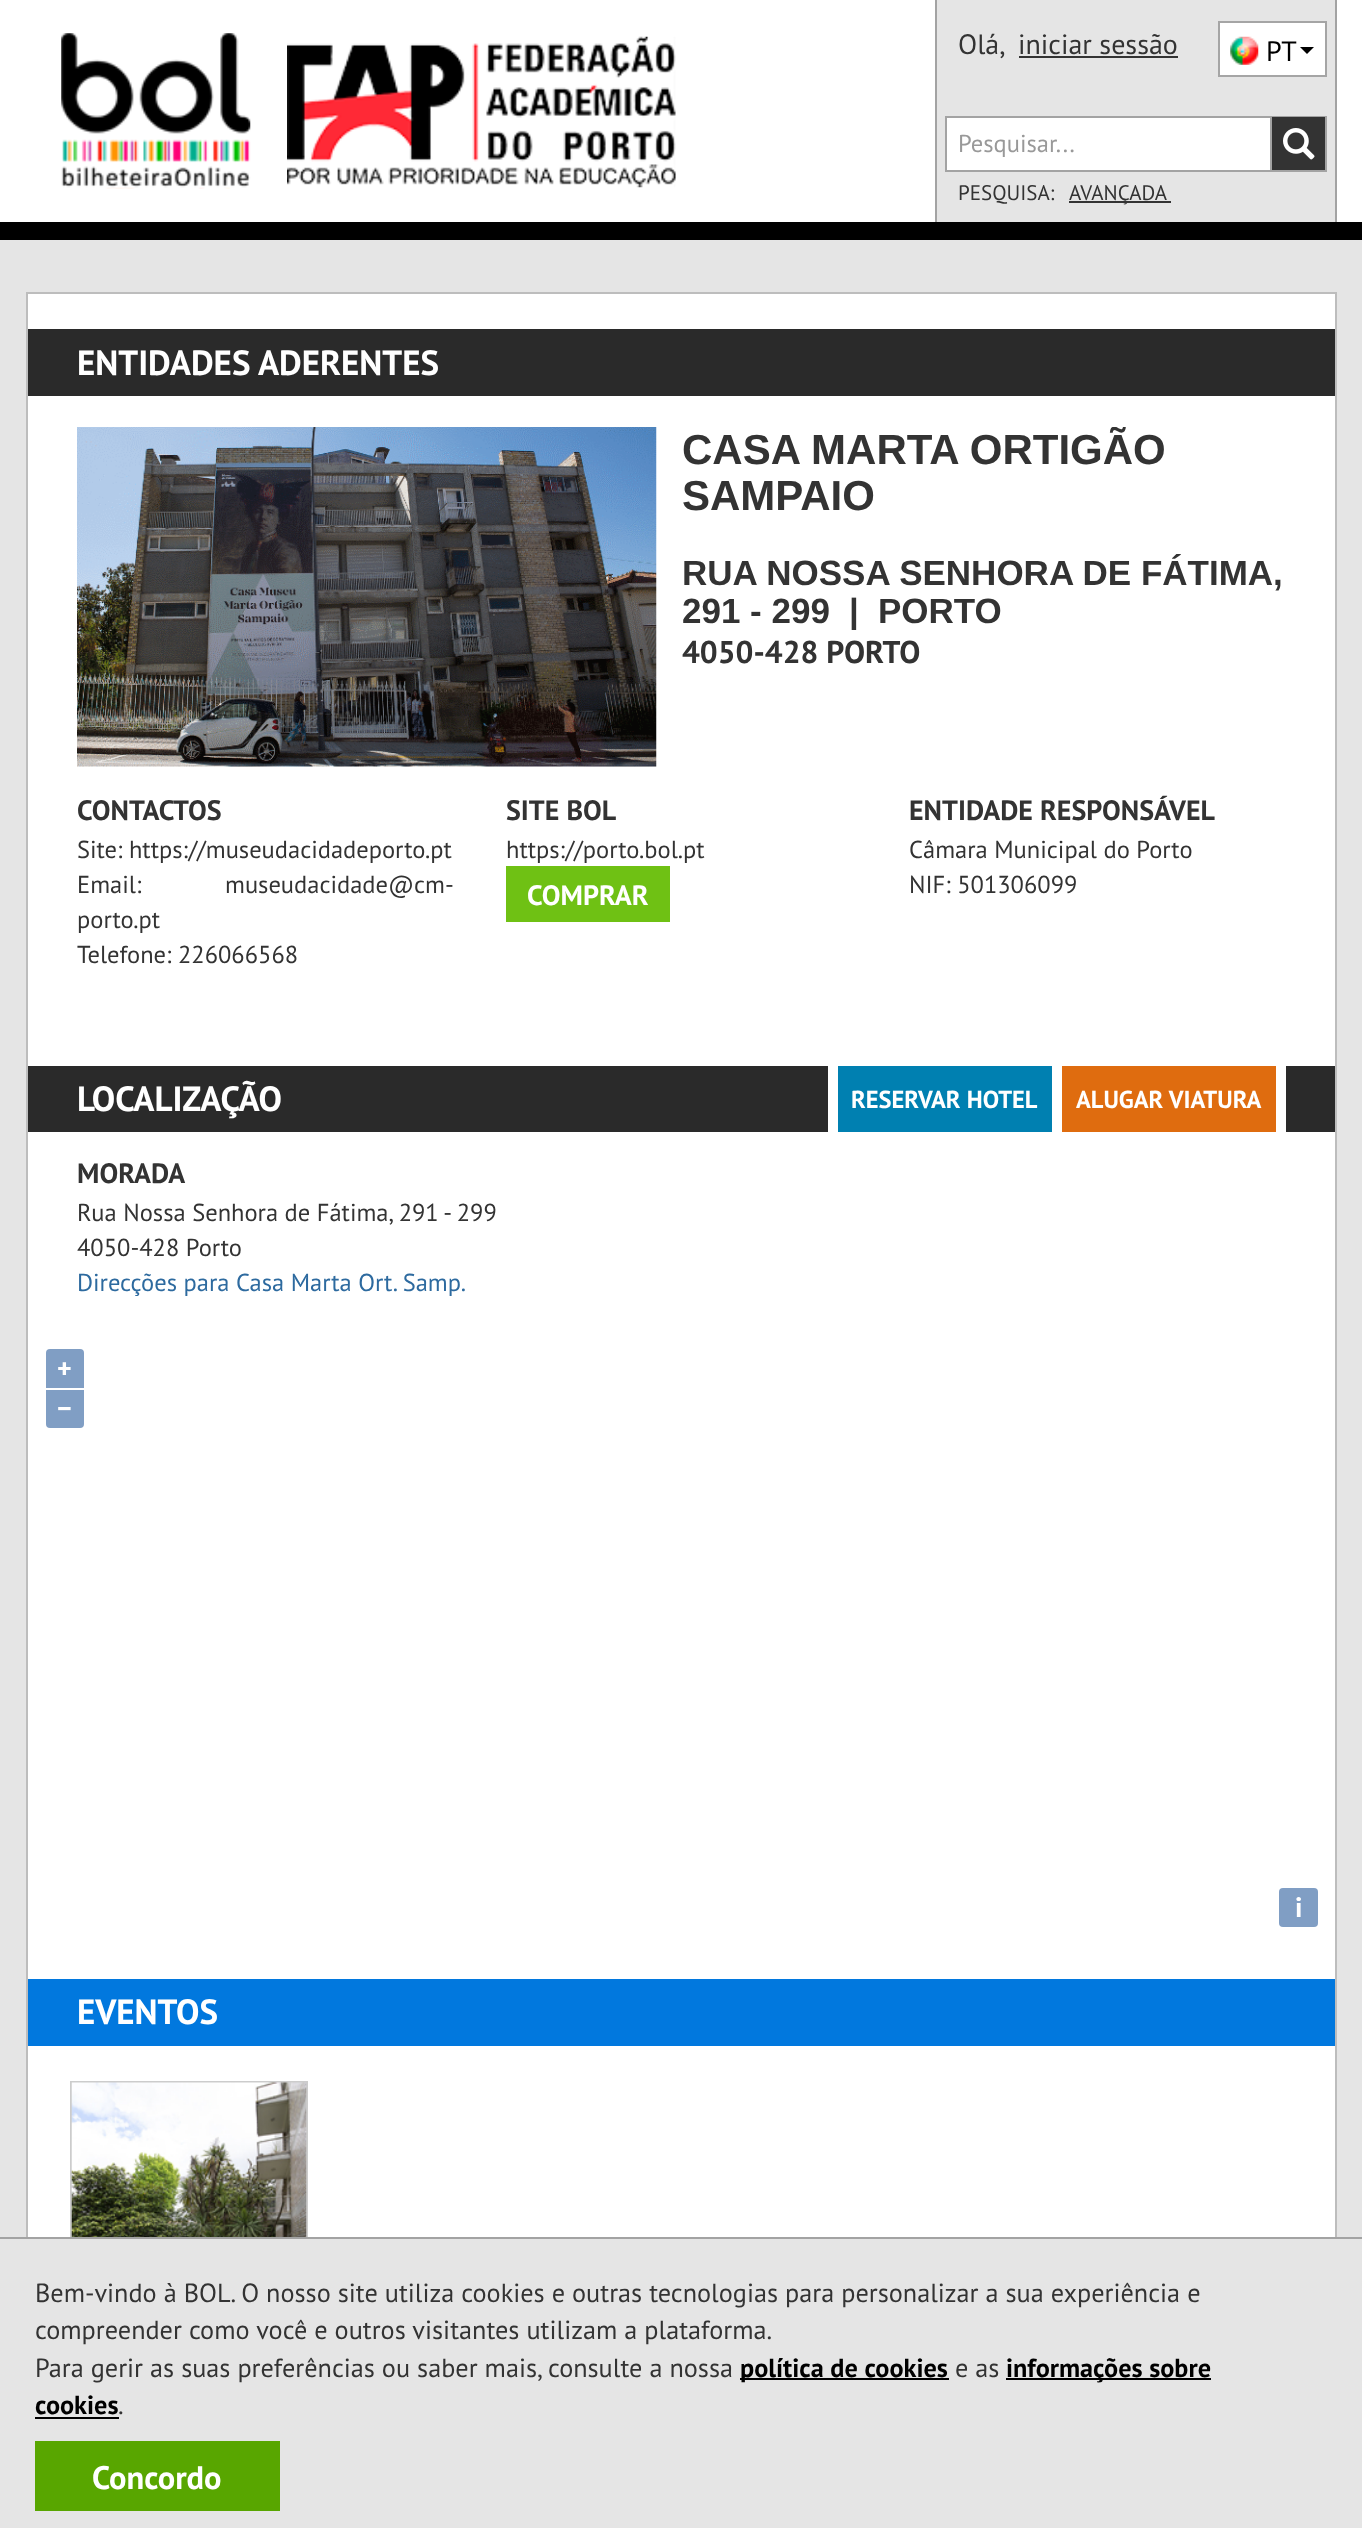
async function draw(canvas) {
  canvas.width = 1362;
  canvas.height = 2528;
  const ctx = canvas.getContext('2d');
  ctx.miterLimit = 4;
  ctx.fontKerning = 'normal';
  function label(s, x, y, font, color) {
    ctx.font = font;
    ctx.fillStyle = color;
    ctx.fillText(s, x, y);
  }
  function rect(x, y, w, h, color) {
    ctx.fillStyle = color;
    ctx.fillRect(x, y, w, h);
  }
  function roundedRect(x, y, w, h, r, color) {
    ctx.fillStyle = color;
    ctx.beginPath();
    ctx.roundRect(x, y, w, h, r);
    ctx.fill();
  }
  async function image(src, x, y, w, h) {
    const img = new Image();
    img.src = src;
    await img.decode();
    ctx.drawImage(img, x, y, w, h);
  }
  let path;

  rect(0, 0, 1362, 2528, '#e5e5e5');
  rect(0, 0, 1362, 222, '#fff');
  rect(0, 222, 1362, 18, '#000');
  await image('assets/img1.png', 61, 33, 190, 156);
  await image('assets/img2.png', 287, 36, 389, 152);
  rect(937, 0, 398, 222, '#e5e5e5');
  rect(1335, 0, 2, 222, '#a3a3a3');
  rect(935, 0, 2, 222, '#a3a3a3');
  label('Olá,', 958, 54, '28px PT Sans', '#333');
  label('iniciar sessão', 1018, 54, '28px PT Sans', '#333');
  rect(1019, 56, 159, 2, '#333');
  ctx.fillStyle = '#fff';
  ctx.beginPath();
  ctx.rect(1219, 22, 107, 54);
  ctx.fill();
  ctx.strokeStyle = '#a5a5a5';
  ctx.lineWidth = 2;
  ctx.stroke();
  await image('assets/img3.png', 1230, 36, 29, 29);
  label('PT', 1266, 61, '28px PT Sans', '#000');
  path = new Path2D('M1300 47H1314L1307 54Z');
  ctx.fill(path);
  ctx.fillStyle = '#fff';
  ctx.beginPath();
  ctx.rect(946, 117, 325, 54);
  ctx.fill();
  ctx.strokeStyle = '#a3a3a3';
  ctx.stroke();
  label('Pesquisar...', 958, 152, '24.5px PT Sans', '#999');
  rect(1272, 116, 55, 1, '#a3a3a3');
  rect(1325, 116, 2, 56, '#a3a3a3');
  rect(1272, 170, 55, 2, '#a3a3a3');
  rect(1272, 117, 53, 53, '#333');
  await image('assets/img4.png', 1283, 128, 32, 32);
  label('PESQUISA:', 958, 200, '21px PT Sans', '#333');
  rect(1069, 201, 102, 2, '#333');
  label('AVANÇADA', 1069, 200, '21px PT Sans', '#333');
  rect(28, 294, 1307, 1943, '#fff');
  ctx.strokeStyle = '#bdbdbd';
  ctx.strokeRect(27, 293, 1309, 2200);
  rect(28, 329, 1307, 67, '#2a2a2a');
  label('ENTIDADES ADERENTES', 77, 375, 'bold 35px PT Sans', '#fff');
  await image('assets/img5.png', 77, 427, 580, 340);
  ctx.save();
  ctx.beginPath();
  ctx.rect(683, 427, 603, 91);
  ctx.clip();
  label('CASA MARTA ORTIGÃO', 682, 464, 'bold 42px Liberation Sans', '#333');
  ctx.restore();
  label('SAMPAIO', 682, 510, 'bold 42px Liberation Sans', '#333');
  label('RUA NOSSA SENHORA DE FÁTIMA,', 682, 585, 'bold 35px Liberation Sans', '#333');
  ctx.save();
  ctx.beginPath();
  ctx.rect(683, 553, 603, 77);
  ctx.clip();
  label('291 - 299', 682, 623, 'bold 35px Liberation Sans', '#333');
  label('|', 849, 623, 'bold 35px Liberation Sans', '#333');
  ctx.restore();
  label('PORTO', 878, 623, 'bold 35px Liberation Sans', '#333');
  label('4050-428 PORTO', 682, 663, 'bold 31.5px PT Sans', '#333');
  label('CONTACTOS', 77, 820, 'bold 28px PT Sans', '#333');
  label('Site: https://museudacidadeporto.pt', 77, 858, '24.5px PT Sans', '#333');
  label('Email:', 77, 893, '24.5px PT Sans', '#333');
  label('museudacidade@cm-', 225, 893, '24.5px PT Sans', '#333');
  label('porto.pt', 77, 928, '24.5px PT Sans', '#333');
  label('Telefone: 226066568', 77, 963, '24.5px PT Sans', '#333');
  label('SITE BOL', 506, 820, 'bold 28px PT Sans', '#333');
  label('https://porto.bol.pt', 506, 858, '24.5px PT Sans', '#333');
  rect(506, 866, 164, 56, '#6fc114');
  label('COMPRAR', 527, 905, 'bold 28px PT Sans', '#fff');
  label('ENTIDADE RESPONSÁVEL', 909, 820, 'bold 28px PT Sans', '#333');
  label('Câmara Municipal do Porto', 909, 858, '24.5px PT Sans', '#333');
  label('NIF: 501306099', 909, 893, '24.5px PT Sans', '#333');
  rect(28, 1066, 1307, 66, '#2a2a2a');
  label('LOCALIZAÇÃO', 77, 1111, 'bold 35px PT Sans', '#fff');
  rect(828, 1066, 458, 66, '#fff');
  rect(838, 1066, 214, 66, '#0080b1');
  label('RESERVAR HOTEL', 851, 1108, 'bold 24.5px PT Sans', '#fff');
  rect(1062, 1066, 214, 66, '#df6c0f');
  label('ALUGAR VIATURA', 1076, 1108, 'bold 24.5px PT Sans', '#fff');
  label('MORADA', 77, 1183, 'bold 28px PT Sans', '#333');
  label('Rua Nossa Senhora de Fátima, 291 - 299', 77, 1221, '24.5px PT Sans', '#333');
  label('4050-428 Porto', 77, 1256, '24.5px PT Sans', '#333');
  label('Direcções para Casa Marta Ort. Samp.', 77, 1291, '24.5px PT Sans', '#2d6a9f');
  ctx.fillStyle = '#809ec4';
  ctx.beginPath();
  ctx.roundRect(46, 1349, 38, 39, [4, 4, 0, 0]);
  ctx.fill();
  label('+', 57, 1378, 'bold 28px PT Sans', '#fff');
  ctx.fillStyle = '#809ec4';
  ctx.beginPath();
  ctx.roundRect(46, 1390, 38, 38, [0, 0, 4, 4]);
  ctx.fill();
  label('−', 57, 1418, 'bold 28px PT Sans', '#fff');
  roundedRect(1279, 1888, 39, 39, 4, '#809ec4');
  label('i', 1295, 1917, 'bold 28px PT Sans', '#fff');
  rect(28, 1979, 1307, 67, '#0178de');
  label('EVENTOS', 77, 2024, 'bold 35px PT Sans', '#fff');
  ctx.strokeStyle = '#ccc';
  ctx.strokeRect(71, 2082, 236, 306);
  await image('assets/img6.png', 71, 2082, 236, 155);
  rect(26, 2239, 1311, 255, '#e5e5e5');
  rect(0, 2237, 1362, 2, '#a3a3a3');
  label('Bem-vindo à BOL. O nosso site utiliza cookies e outras tecnologias para personalizar a sua experiência e', 35, 2302, '26.25px PT Sans', '#333');
  label('compreender como você e outros visitantes utilizam a plataforma.', 35, 2339, '26.25px PT Sans', '#333');
  label('Para gerir as suas preferências ou saber mais, consulte a nossa', 35, 2377, '26.25px PT Sans', '#333');
  rect(740, 2378, 209, 2, '#000');
  label('política de cookies', 740, 2377, 'bold 26.25px PT Sans', '#000');
  label('e as', 955, 2377, '26.25px PT Sans', '#333');
  rect(1006, 2378, 205, 2, '#000');
  label('informações sobre', 1006, 2377, 'bold 26.25px PT Sans', '#000');
  label('cookies', 35, 2414, 'bold 26.25px PT Sans', '#000');
  rect(35, 2417, 84, 2, '#000');
  label('.', 118, 2414, '26.25px PT Sans', '#333');
  rect(35, 2441, 245, 70, '#58a600');
  label('Concordo', 92, 2489, 'bold 32.5px PT Sans', '#fff');
}

draw(document.querySelector('canvas'));
